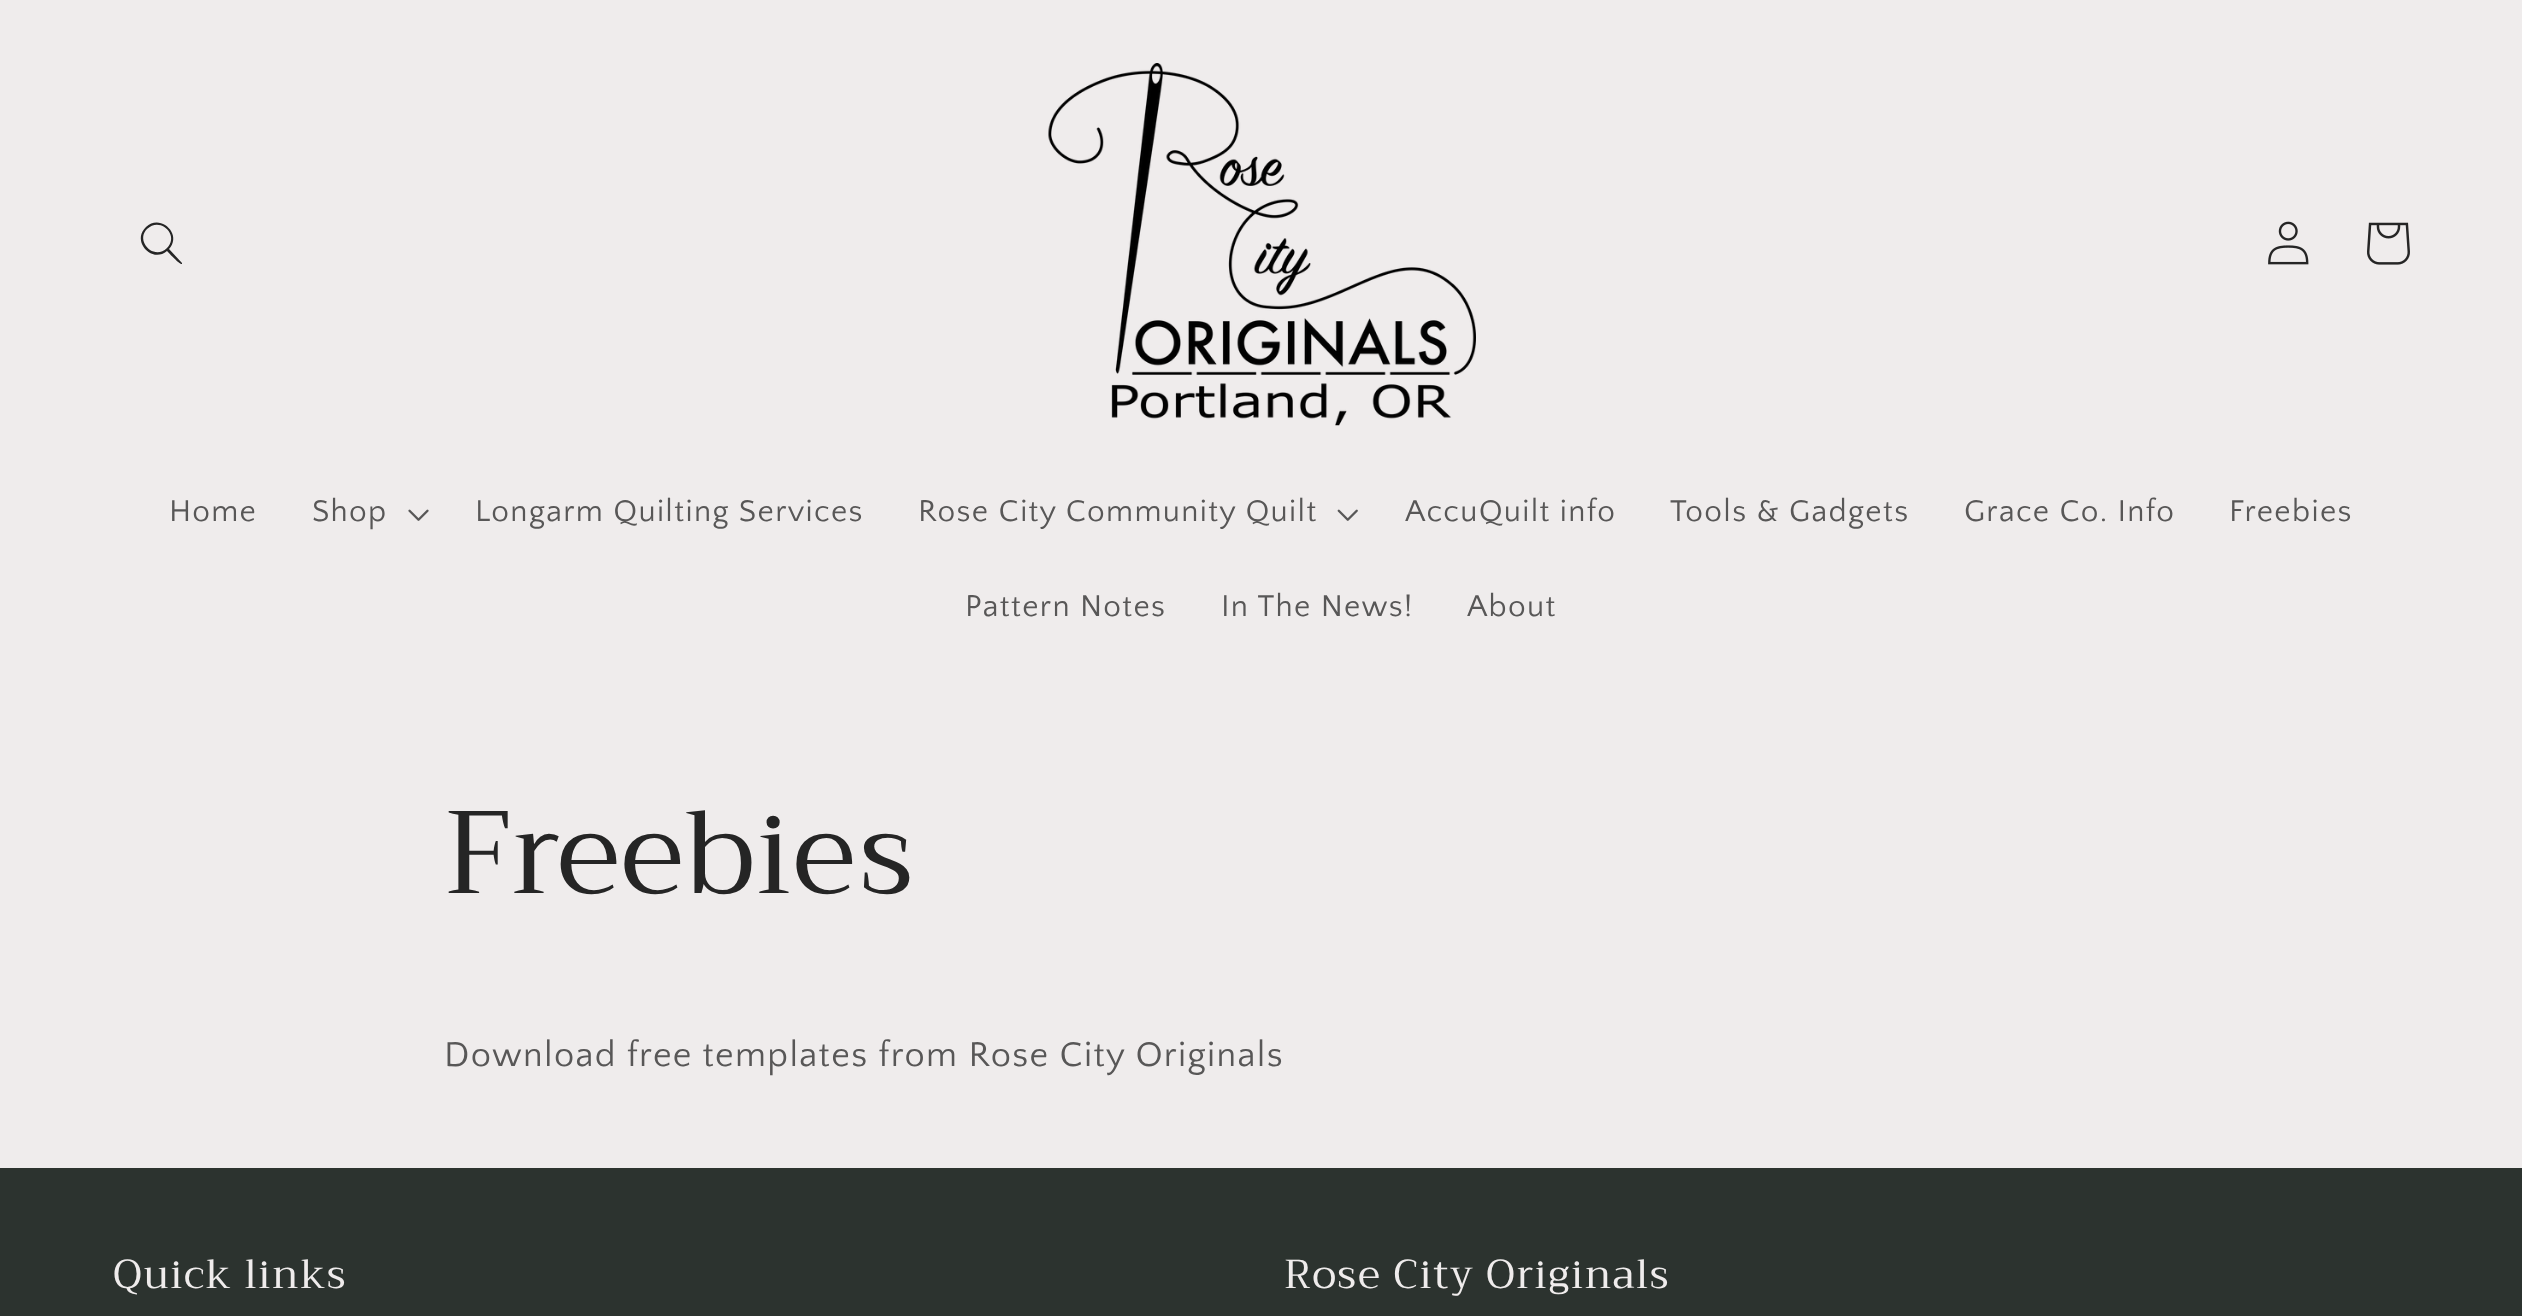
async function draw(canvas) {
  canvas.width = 2522;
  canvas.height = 1316;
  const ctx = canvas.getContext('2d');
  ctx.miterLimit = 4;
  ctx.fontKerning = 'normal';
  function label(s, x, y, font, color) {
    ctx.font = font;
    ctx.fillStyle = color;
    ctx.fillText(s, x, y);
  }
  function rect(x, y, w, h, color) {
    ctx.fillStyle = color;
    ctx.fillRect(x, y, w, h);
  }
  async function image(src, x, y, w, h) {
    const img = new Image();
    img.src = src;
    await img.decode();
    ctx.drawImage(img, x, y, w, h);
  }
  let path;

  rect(0, 0, 2522, 1316, '#efecec');
  ctx.fillStyle = '#252525';
  path = new Path2D('M167 248C154 261 135 241 147 229C160 216 180 235 167 248ZM167 251C152 264 131 241 146 227C160 213 183 234 169 249L182 263V264C180 265 169 253 167 251Z');
  ctx.fill(path, 'evenodd');
  await image('assets/img1.png', 1048, 63, 428, 363);
  await image('assets/img2.png', 2268, 221, 41, 44);
  await image('assets/img3.png', 2367, 222, 43, 43);
  ctx.letterSpacing = '1.35px';
  label('Home', 169, 521, '31.5px Quattrocento Sans', '#585757');
  label('Shop', 312, 521, '31.5px Quattrocento Sans', '#585757');
  await image('assets/img4.png', 408, 509, 21, 12);
  label('Longarm Quilting Services', 475, 521, '31.5px Quattrocento Sans', '#585757');
  label('Rose City Community Quilt', 918, 521, '31.5px Quattrocento Sans', '#585757');
  await image('assets/img5.png', 1337, 509, 21, 12);
  label('AccuQuilt info', 1405, 521, '31.5px Quattrocento Sans', '#585757');
  label('Tools & Gadgets', 1670, 521, '31.5px Quattrocento Sans', '#585757');
  label('Grace Co. Info', 1964, 521, '31.5px Quattrocento Sans', '#585757');
  label('Freebies', 2229, 521, '31.5px Quattrocento Sans', '#585757');
  label('Pattern Notes', 965, 616, '31.5px Quattrocento Sans', '#585757');
  label('In The News!', 1221, 616, '31.5px Quattrocento Sans', '#585757');
  label('About', 1467, 616, '31.5px Quattrocento Sans', '#585757');
  label('Freebies', 444, 893, '117px Trirong', '#252525');
  label('Download free templates from Rose City Originals', 444, 1066, '36px Quattrocento Sans', '#585757');
  rect(0, 1168, 2522, 148, '#2c332f');
  label('Quick links', 113, 1288, '40.5px Trirong', '#efecec');
  label('Rose City Originals', 1284, 1288, '40.5px Trirong', '#efecec');
}

draw(document.querySelector('canvas'));
